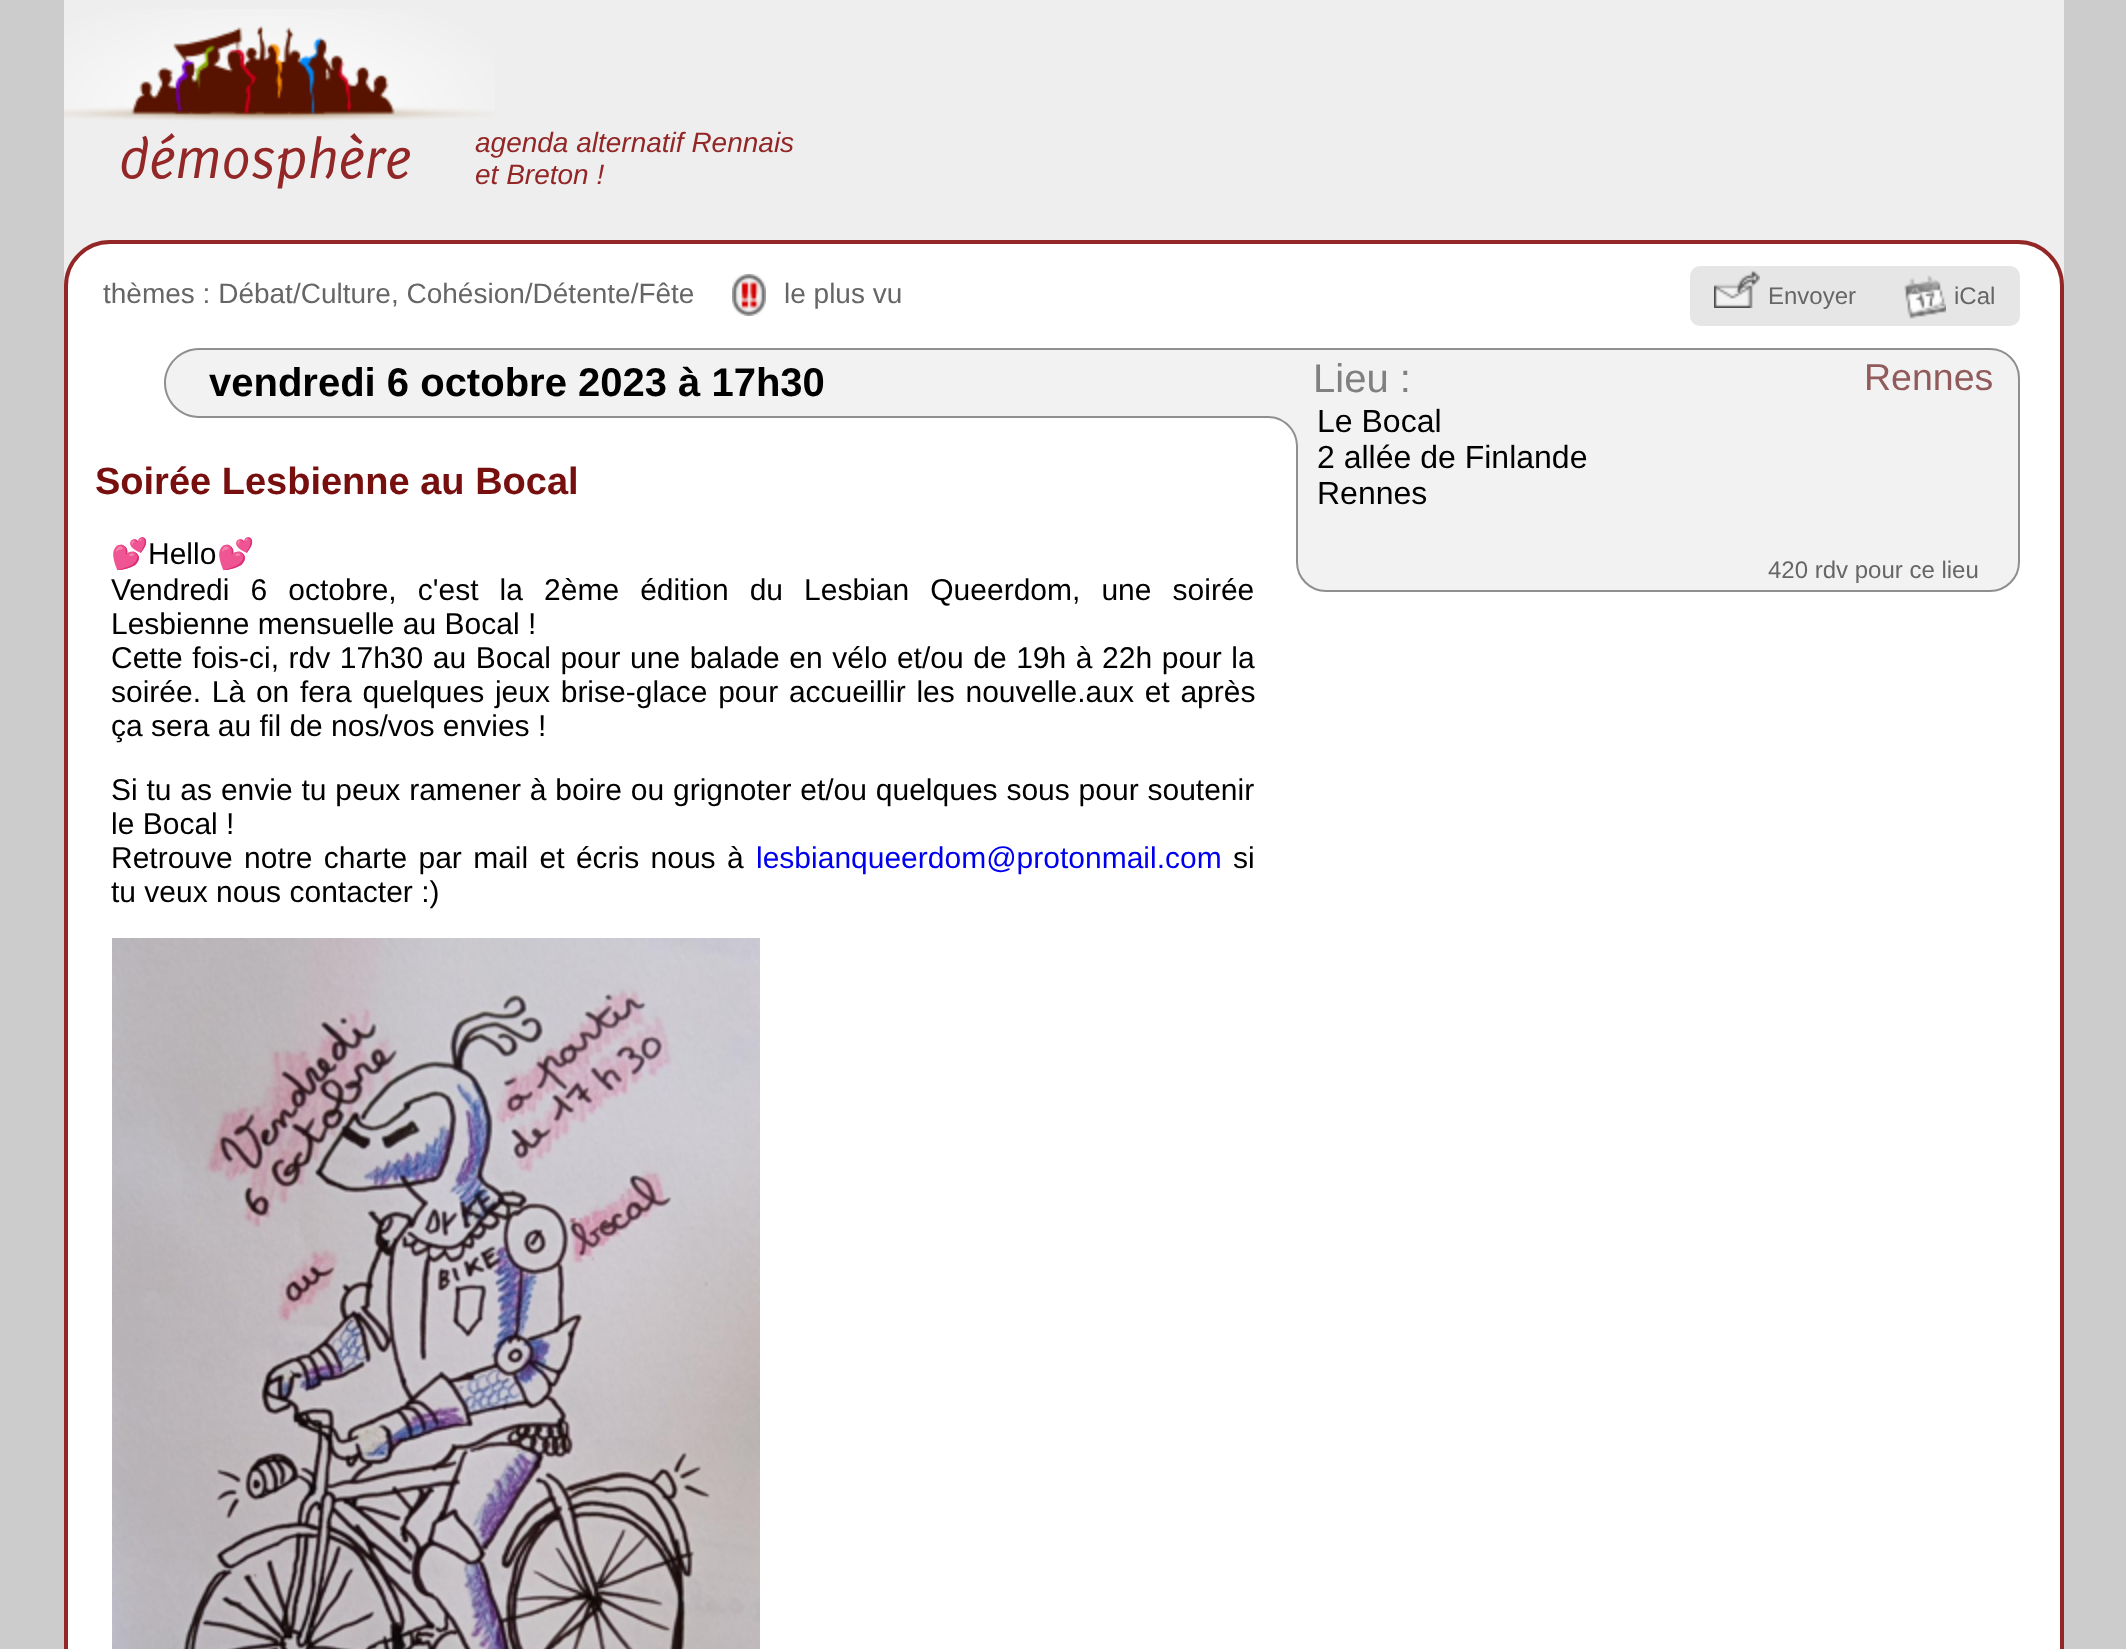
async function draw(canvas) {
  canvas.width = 2126;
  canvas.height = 1649;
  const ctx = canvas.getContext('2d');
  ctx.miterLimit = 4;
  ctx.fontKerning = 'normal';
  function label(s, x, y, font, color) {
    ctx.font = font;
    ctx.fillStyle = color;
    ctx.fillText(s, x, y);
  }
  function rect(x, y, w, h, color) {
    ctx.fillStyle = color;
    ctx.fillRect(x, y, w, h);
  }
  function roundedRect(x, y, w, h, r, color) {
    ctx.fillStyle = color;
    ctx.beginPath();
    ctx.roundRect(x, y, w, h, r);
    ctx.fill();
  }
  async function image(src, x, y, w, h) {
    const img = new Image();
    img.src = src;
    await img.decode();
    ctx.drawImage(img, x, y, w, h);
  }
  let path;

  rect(0, 0, 2126, 1649, '#ccc');
  rect(64, 0, 2000, 286, '#eee');
  await image('assets/img1.png', 64, 9, 431, 112);
  label('démosphère', 119, 178, 'italic 500 60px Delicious', '#932626');
  label('agenda alternatif Rennais', 475, 152, 'italic 28px Liberation Sans', '#932626');
  label('et Breton !', 475, 184, 'italic 28px Liberation Sans', '#932626');
  ctx.fillStyle = '#fff';
  ctx.beginPath();
  ctx.roundRect(66, 242, 1996, 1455, 44);
  ctx.fill();
  ctx.strokeStyle = '#932626';
  ctx.lineWidth = 4;
  ctx.stroke();
  label('thèmes : Débat/Culture, Cohésion/Détente/Fête', 103, 303, '28px Liberation Sans', '#666');
  await image('assets/img2.png', 732, 274, 34, 42);
  label('le plus vu', 784, 303, '28px Liberation Sans', '#666');
  roundedRect(1690, 266, 330, 60, 10, '#e6e6e6');
  await image('assets/img3.png', 1714, 270, 46, 38);
  label('Envoyer', 1768, 304, '24px Liberation Sans', '#666');
  await image('assets/img4.png', 1904, 275, 42, 44);
  label('iCal', 1954, 304, '24px Liberation Sans', '#666');
  ctx.fillStyle = '#f2f2f2';
  ctx.beginPath();
  ctx.roundRect(164, 348, 1300, 70, [35, 0, 0, 35]);
  ctx.fill();
  ctx.fillStyle = '#8f8f8f';
  path = new Path2D('M199 348H1464V418H199C180 418 164 402 164 383C164 364 180 348 199 348ZM199 350H1464V416H199C181 416 166 401 166 383C166 365 181 350 199 350Z');
  ctx.fill(path, 'evenodd');
  label('vendredi 6 octobre 2023 à 17h30', 209, 396, 'bold 40px Liberation Sans', '#000');
  ctx.fillStyle = '#f2f2f2';
  ctx.beginPath();
  ctx.roundRect(1297, 349, 722, 242, [0, 29, 29, 29]);
  ctx.fill();
  ctx.strokeStyle = '#8f8f8f';
  ctx.lineWidth = 2;
  ctx.stroke();
  rect(1268, 350, 30, 98, '#f2f2f2');
  ctx.fillStyle = '#fff';
  ctx.beginPath();
  ctx.roundRect(1268, 416, 30, 32, [0, 30, 0, 0]);
  ctx.fill();
  ctx.fillStyle = '#8f8f8f';
  path = new Path2D('M1268 416C1284.5 416 1298 429.5 1298 446V448H1268ZM1268 418C1283.5 418 1296 430.5 1296 446V448H1268Z');
  ctx.fill(path, 'evenodd');
  label('Lieu :', 1313, 392, '40px Liberation Sans', '#808080');
  label('Rennes', 1864, 390, '37.5px Liberation Sans', '#915b5b');
  label('Le Bocal', 1317, 432, '32px Liberation Sans', '#000');
  label('2 allée de Finlande', 1317, 468, '32px Liberation Sans', '#000');
  label('Rennes', 1317, 504, '32px Liberation Sans', '#000');
  label('420 rdv pour ce lieu', 1768, 578, '24px Liberation Sans', '#666');
  label('Soirée Lesbienne au Bocal', 95, 494, 'bold 38px Liberation Sans', '#770f0f');
  label('💕', 111, 564, '30px Noto Color Emoji', '#000');
  label('Hello', 148, 564, '30px Liberation Sans', '#000');
  label('💕', 217, 564, '30px Noto Color Emoji', '#000');
  ctx.wordSpacing = '12.75px';
  label('Vendredi 6 octobre, c\'est la 2ème édition du Lesbian Queerdom, une soirée', 111, 600, '30px Liberation Sans', '#000');
  ctx.wordSpacing = '0px';
  label('Lesbienne mensuelle au Bocal !', 111, 634, '30px Liberation Sans', '#000');
  ctx.wordSpacing = '1.25px';
  label('Cette fois-ci, rdv 17h30 au Bocal pour une balade en vélo et/ou de 19h à 22h pour la', 111, 668, '30px Liberation Sans', '#000');
  ctx.wordSpacing = '2.4px';
  label('soirée. Là on fera quelques jeux brise-glace pour accueillir les nouvelle.aux et après', 111, 702, '30px Liberation Sans', '#000');
  ctx.wordSpacing = '0px';
  label('ça sera au fil de nos/vos envies !', 111, 736, '30px Liberation Sans', '#000');
  ctx.wordSpacing = '0.5px';
  label('Si tu as envie tu peux ramener à boire ou grignoter et/ou quelques sous pour soutenir', 111, 800, '30px Liberation Sans', '#000');
  ctx.wordSpacing = '0px';
  label('le Bocal !', 111, 834, '30px Liberation Sans', '#000');
  ctx.wordSpacing = '3px';
  label('Retrouve notre charte par mail et écris nous à', 111, 868, '30px Liberation Sans', '#000');
  ctx.wordSpacing = '0px';
  label('lesbianqueerdom@protonmail.com', 756, 868, '30px Liberation Sans', '#00e');
  label('si', 1233, 868, '30px Liberation Sans', '#000');
  label('tu veux nous contacter :)', 111, 902, '30px Liberation Sans', '#000');
  await image('assets/img5.png', 112, 938, 648, 711);
}

draw(document.querySelector('canvas'));
